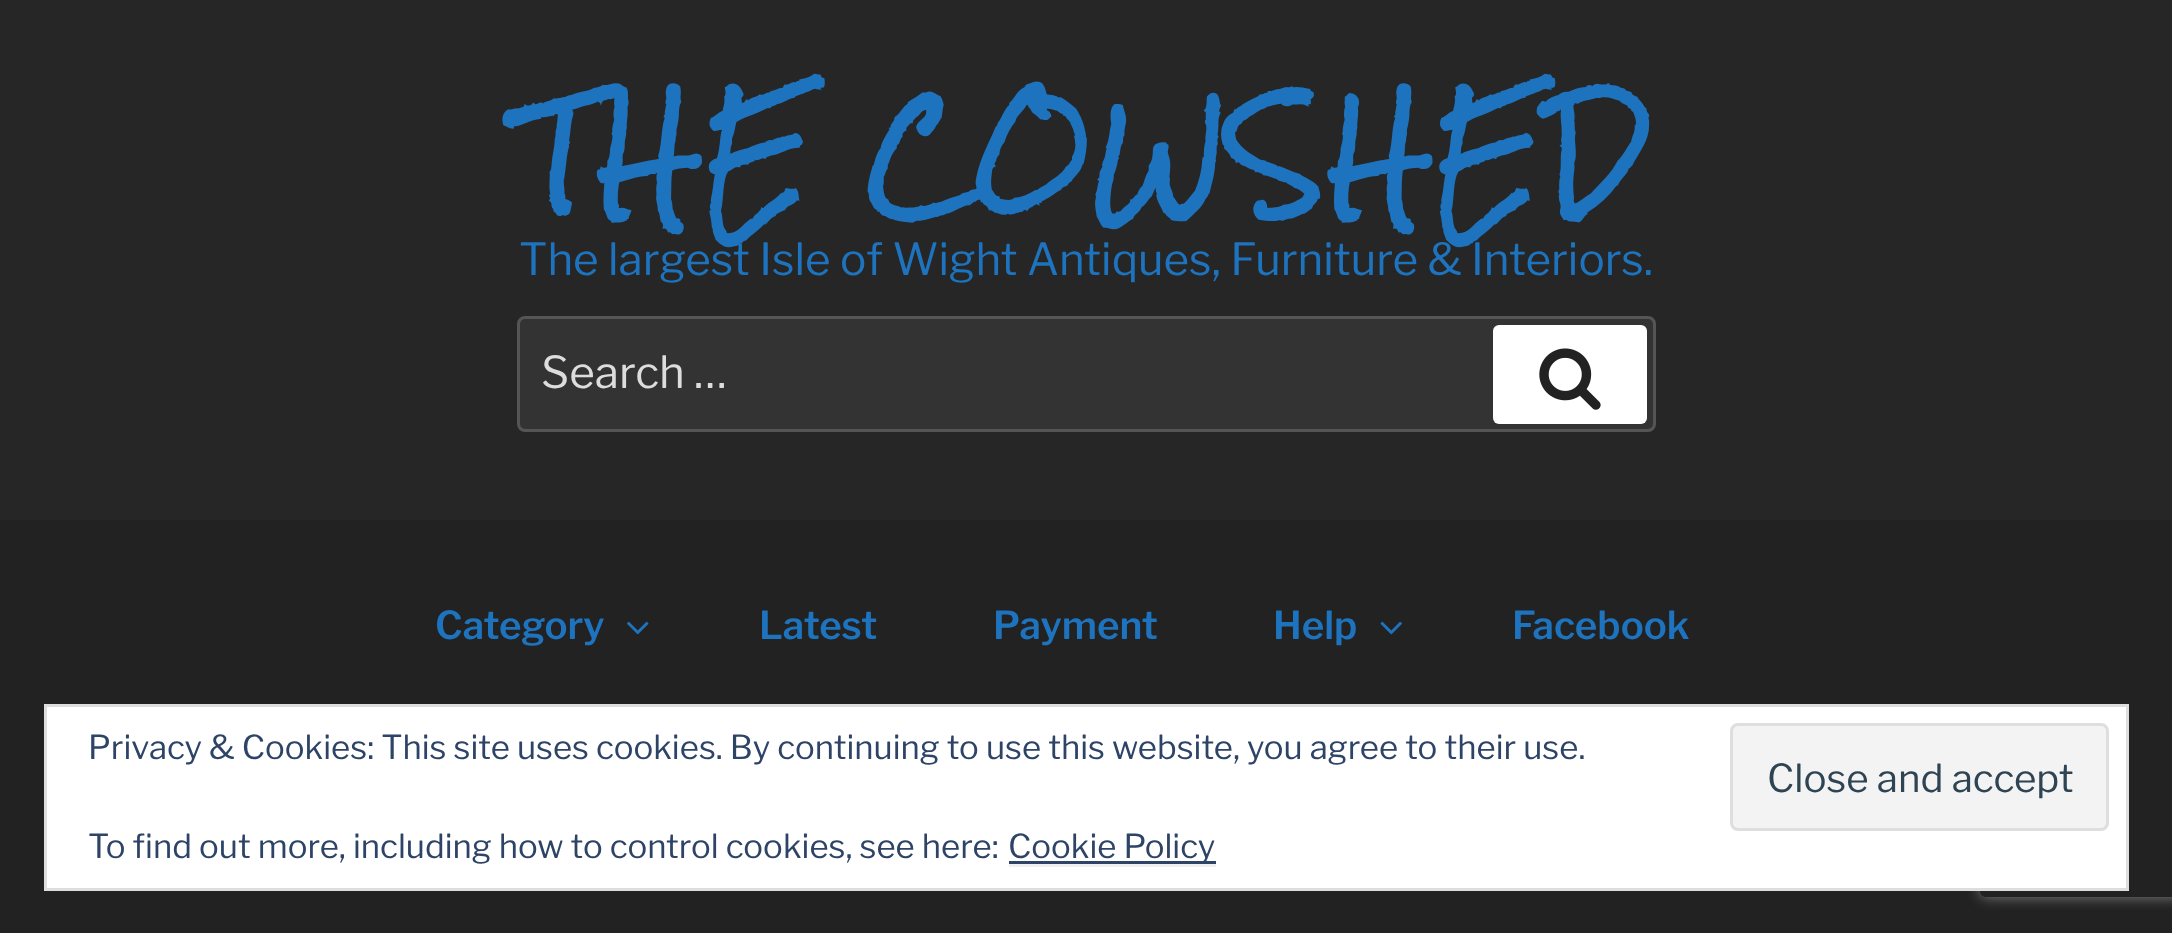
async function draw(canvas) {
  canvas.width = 2172;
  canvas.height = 933;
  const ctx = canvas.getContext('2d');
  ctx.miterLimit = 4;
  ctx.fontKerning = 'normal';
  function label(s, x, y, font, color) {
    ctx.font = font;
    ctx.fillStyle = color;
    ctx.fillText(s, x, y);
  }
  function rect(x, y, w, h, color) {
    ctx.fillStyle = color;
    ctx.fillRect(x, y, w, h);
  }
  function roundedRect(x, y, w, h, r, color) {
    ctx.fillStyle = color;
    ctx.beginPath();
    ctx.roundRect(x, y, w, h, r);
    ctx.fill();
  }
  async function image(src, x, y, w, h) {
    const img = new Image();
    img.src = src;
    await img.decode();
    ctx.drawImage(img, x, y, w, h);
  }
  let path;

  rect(0, 0, 2172, 933, '#222');
  rect(0, 0, 2172, 520, '#262626');
  ctx.letterSpacing = '6.6px';
  label('THE COWSHED', 520, 201, 'bold 110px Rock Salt', '#1e73be');
  ctx.letterSpacing = '0px';
  label('The largest Isle of Wight Antiques, Furniture & Interiors.', 519, 275, '44px Libre Franklin', '#1e73be');
  ctx.fillStyle = '#333';
  ctx.beginPath();
  ctx.roundRect(518.5, 317.5, 1136, 113, 6.5);
  ctx.fill();
  ctx.strokeStyle = '#555';
  ctx.lineWidth = 3;
  ctx.stroke();
  label('Search …', 541, 388, '44px Libre Franklin', '#ddd');
  roundedRect(1493, 325, 154, 99, 6, '#fff');
  await image('assets/img1.png', 1539, 348, 62, 62);
  ctx.save();
  path = new Path2D('M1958 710H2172V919H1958ZM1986 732H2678C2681.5 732 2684 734.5 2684 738V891C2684 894.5 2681.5 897 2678 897H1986C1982.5 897 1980 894.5 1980 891V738C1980 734.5 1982.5 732 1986 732Z');
  ctx.clip(path, 'evenodd');
  ctx.fillStyle = '#808080';
  ctx.filter = 'blur(7px)';
  ctx.beginPath();
  ctx.roundRect(1980, 732, 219, 165, 6);
  ctx.fill();
  ctx.filter = 'none';
  ctx.restore();
  rect(1970, 719, 202, 13, '#222');
  label('Category', 435, 639, '600 38.5px Libre Franklin', '#1e73be');
  await image('assets/img2.png', 627, 621, 22, 14);
  label('Latest', 759, 639, '600 38.5px Libre Franklin', '#1e73be');
  label('Payment', 993, 639, '600 38.5px Libre Franklin', '#1e73be');
  label('Help', 1273, 639, '600 38.5px Libre Franklin', '#1e73be');
  await image('assets/img3.png', 1380, 621, 22, 14);
  label('Facebook', 1512, 639, '600 38.5px Libre Franklin', '#1e73be');
  ctx.fillStyle = '#fff';
  ctx.beginPath();
  ctx.rect(45.5, 705.5, 2082, 184);
  ctx.fill();
  ctx.strokeStyle = '#dedede';
  ctx.stroke();
  label('Privacy & Cookies: This site uses cookies. By continuing to use this website, you agree to their use.', 88, 759, '33px Libre Franklin', '#2e4467');
  ctx.fillStyle = '#f3f3f3';
  ctx.beginPath();
  ctx.roundRect(1731.5, 724.5, 376, 105, 6.5);
  ctx.fill();
  ctx.stroke();
  label('Close and accept', 1767, 792, '38.5px Libre Franklin', '#2e4453');
  label('To find out more, including how to control cookies, see here:', 88, 858, '33px Libre Franklin', '#2e4467');
  rect(1009, 861, 207, 3, '#2e4467');
  label('Cookie Policy', 1008, 858, '33px Libre Franklin', '#2e4467');
  rect(1009, 864, 207, 3, '#f0f0f0');
}

draw(document.querySelector('canvas'));
